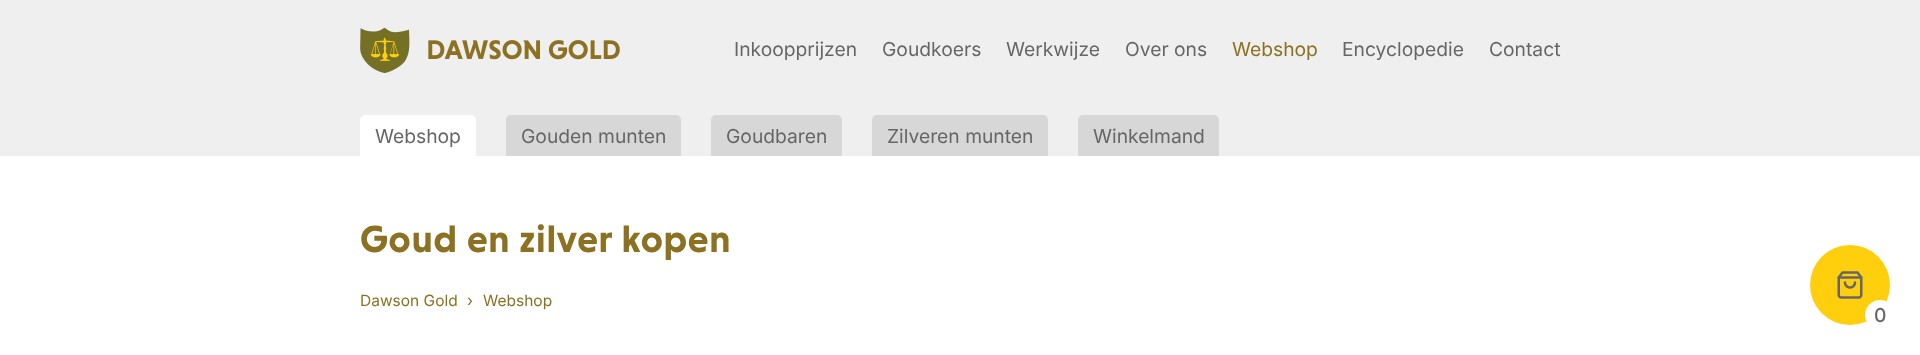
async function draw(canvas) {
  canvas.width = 1920;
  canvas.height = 355;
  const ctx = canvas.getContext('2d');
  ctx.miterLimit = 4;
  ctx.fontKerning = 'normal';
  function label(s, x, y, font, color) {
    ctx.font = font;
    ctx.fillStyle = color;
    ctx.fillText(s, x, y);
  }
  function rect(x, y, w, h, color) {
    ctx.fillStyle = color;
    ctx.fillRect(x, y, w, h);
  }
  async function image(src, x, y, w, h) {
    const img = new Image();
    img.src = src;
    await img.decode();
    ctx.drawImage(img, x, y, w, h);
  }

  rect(0, 0, 1920, 355, '#fff');
  rect(0, 0, 1920, 156, '#efefef');
  await image('assets/img1.png', 360, 27, 260, 46);
  label('Inkoopprijzen', 734, 56, '19.25px Inter', '#666');
  label('Goudkoers', 882, 56, '19.25px Inter', '#666');
  label('Werkwijze', 1006, 56, '19.25px Inter', '#666');
  label('Over ons', 1125, 56, '19.25px Inter', '#666');
  label('Webshop', 1232, 56, '19.25px Inter', '#8b7121');
  label('Encyclopedie', 1342, 56, '19.25px Inter', '#666');
  label('Contact', 1489, 56, '19.25px Inter', '#666');
  ctx.fillStyle = '#fff';
  ctx.beginPath();
  ctx.roundRect(360, 115, 116, 41, [5, 5, 0, 0]);
  ctx.fill();
  label('Webshop', 375, 143, '19.25px Inter', '#666');
  ctx.fillStyle = '#d7d7d7';
  ctx.beginPath();
  ctx.roundRect(506, 115, 175, 41, [5, 5, 0, 0]);
  ctx.fill();
  label('Gouden munten', 521, 143, '19.25px Inter', '#666');
  ctx.fillStyle = '#d7d7d7';
  ctx.beginPath();
  ctx.roundRect(711, 115, 131, 41, [5, 5, 0, 0]);
  ctx.fill();
  label('Goudbaren', 726, 143, '19.25px Inter', '#666');
  ctx.fillStyle = '#d7d7d7';
  ctx.beginPath();
  ctx.roundRect(872, 115, 176, 41, [5, 5, 0, 0]);
  ctx.fill();
  label('Zilveren munten', 887, 143, '19.25px Inter', '#666');
  ctx.fillStyle = '#d7d7d7';
  ctx.beginPath();
  ctx.roundRect(1078, 115, 141, 41, [5, 5, 0, 0]);
  ctx.fill();
  label('Winkelmand', 1093, 143, '19.25px Inter', '#666');
  ctx.letterSpacing = '0.75px';
  label('Goud en zilver kopen', 360, 252, 'bold 38.5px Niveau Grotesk', '#8b7121');
  ctx.letterSpacing = '0px';
  label('Dawson Gold', 360, 306, '15.5px Inter', '#8b7121');
  label('›', 467, 306, '15.5px Inter', '#8b7121');
  label('Webshop', 483, 306, '15.5px Inter', '#8b7121');
  ctx.fillStyle = '#ffcf0d';
  ctx.beginPath();
  ctx.arc(1850, 285, 40, 0, 2 * Math.PI);
  ctx.fill();
  await image('assets/img2.png', 1837, 271, 26, 28);
  ctx.fillStyle = '#fff';
  ctx.beginPath();
  ctx.arc(1880, 315, 15, 0, 2 * Math.PI);
  ctx.fill();
  label('0', 1874, 322, '500 19.25px Inter', '#666');
}

draw(document.querySelector('canvas'));
